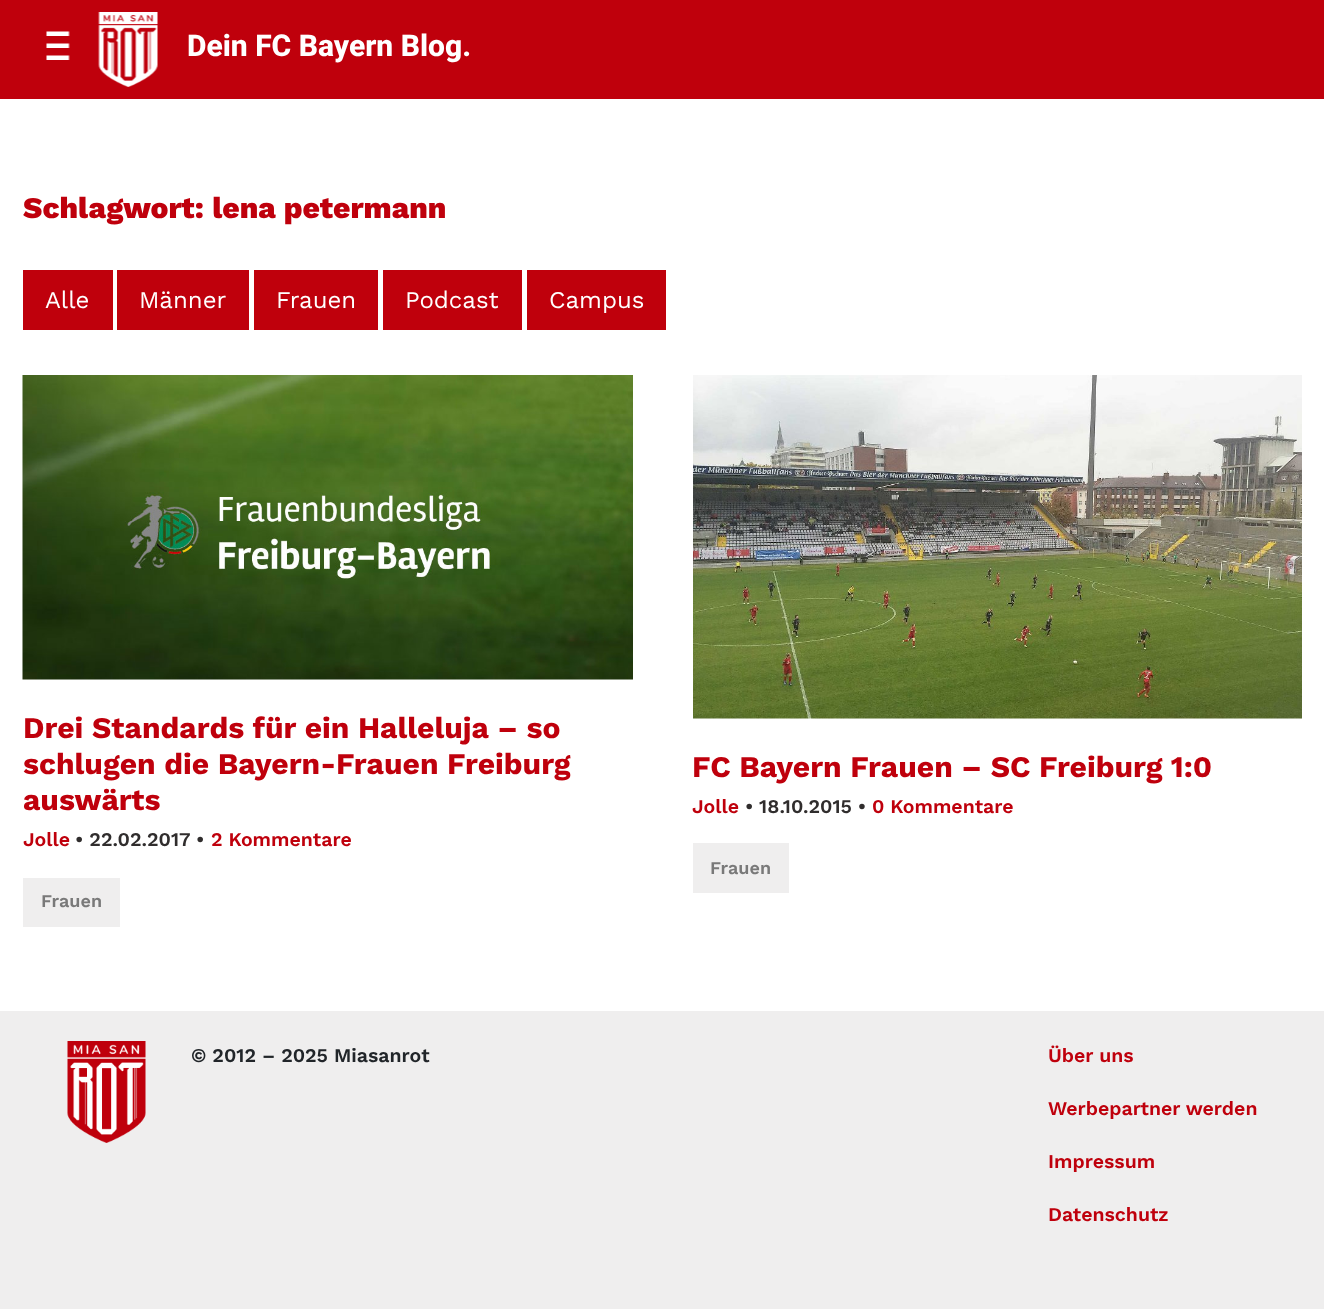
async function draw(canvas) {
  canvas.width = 1324;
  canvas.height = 1309;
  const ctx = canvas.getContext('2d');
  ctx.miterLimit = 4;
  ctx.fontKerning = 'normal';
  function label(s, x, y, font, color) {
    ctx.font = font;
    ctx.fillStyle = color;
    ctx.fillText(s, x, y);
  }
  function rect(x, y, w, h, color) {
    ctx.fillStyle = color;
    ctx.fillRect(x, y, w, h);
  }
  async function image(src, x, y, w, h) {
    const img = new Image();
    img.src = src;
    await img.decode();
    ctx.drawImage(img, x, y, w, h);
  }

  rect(0, 0, 1324, 1309, '#bf000c');
  await image('assets/img1.png', 46, 31, 24, 29);
  await image('assets/img2.png', 98, 12, 60, 75);
  label('Dein FC Bayern Blog.', 187, 56, '800 30px Roboto', '#fff');
  rect(0, 99, 1324, 912, '#fff');
  label('Schlagwort: lena petermann', 23, 218, '800 30px Work Sans', '#bf000c');
  rect(23, 270, 90, 60, '#bf000c');
  label('Alle', 45, 308, '24px Work Sans', '#fff');
  rect(117, 270, 132, 60, '#bf000c');
  label('Männer', 139, 308, '24px Work Sans', '#fff');
  rect(254, 270, 124, 60, '#bf000c');
  label('Frauen', 276, 308, '24px Work Sans', '#fff');
  rect(383, 270, 139, 60, '#bf000c');
  label('Podcast', 405, 308, '24px Work Sans', '#fff');
  rect(527, 270, 139, 60, '#bf000c');
  label('Campus', 549, 308, '24px Work Sans', '#fff');
  await image('assets/img3.png', 22, 375, 611, 305);
  label('Drei Standards für ein Halleluja – so', 23, 738, 'bold 30px Work Sans', '#bf000c');
  label('schlugen die Bayern-Frauen Freiburg', 23, 774, 'bold 30px Work Sans', '#bf000c');
  label('auswärts', 23, 810, 'bold 30px Work Sans', '#bf000c');
  label('Jolle', 23, 846, '600 19.5px Work Sans', '#bf000c');
  label('• 22.02.2017 •', 75, 846, '600 19.5px Work Sans', '#302d2d');
  label('2 Kommentare', 211, 846, '600 19.5px Work Sans', '#bf000c');
  rect(23, 878, 97, 49, '#efeeee');
  label('Frauen', 41, 907, '600 18px Work Sans', '#797979');
  await image('assets/img4.png', 693, 375, 609, 344);
  label('FC Bayern Frauen – SC Freiburg 1:0', 692, 777, 'bold 30px Work Sans', '#bf000c');
  label('Jolle', 692, 813, '600 19.5px Work Sans', '#bf000c');
  label('• 18.10.2015 •', 745, 813, '600 19.5px Work Sans', '#302d2d');
  label('0 Kommentare', 872, 813, '600 19.5px Work Sans', '#bf000c');
  rect(693, 843, 96, 50, '#efeeee');
  label('Frauen', 710, 874, '600 18px Work Sans', '#797979');
  rect(0, 1011, 1324, 298, '#efeeee');
  await image('assets/img5.png', 67, 1041, 79, 102);
  label('© 2012 – 2025 Miasanrot', 191, 1062, '600 19.5px Work Sans', '#212529');
  label('Über uns', 1048, 1062, '600 19.5px Work Sans', '#bf000c');
  label('Werbepartner werden', 1048, 1115, '600 19.5px Work Sans', '#bf000c');
  label('Impressum', 1048, 1168, '600 19.5px Work Sans', '#bf000c');
  label('Datenschutz', 1048, 1221, '600 19.5px Work Sans', '#bf000c');
}

draw(document.querySelector('canvas'));
